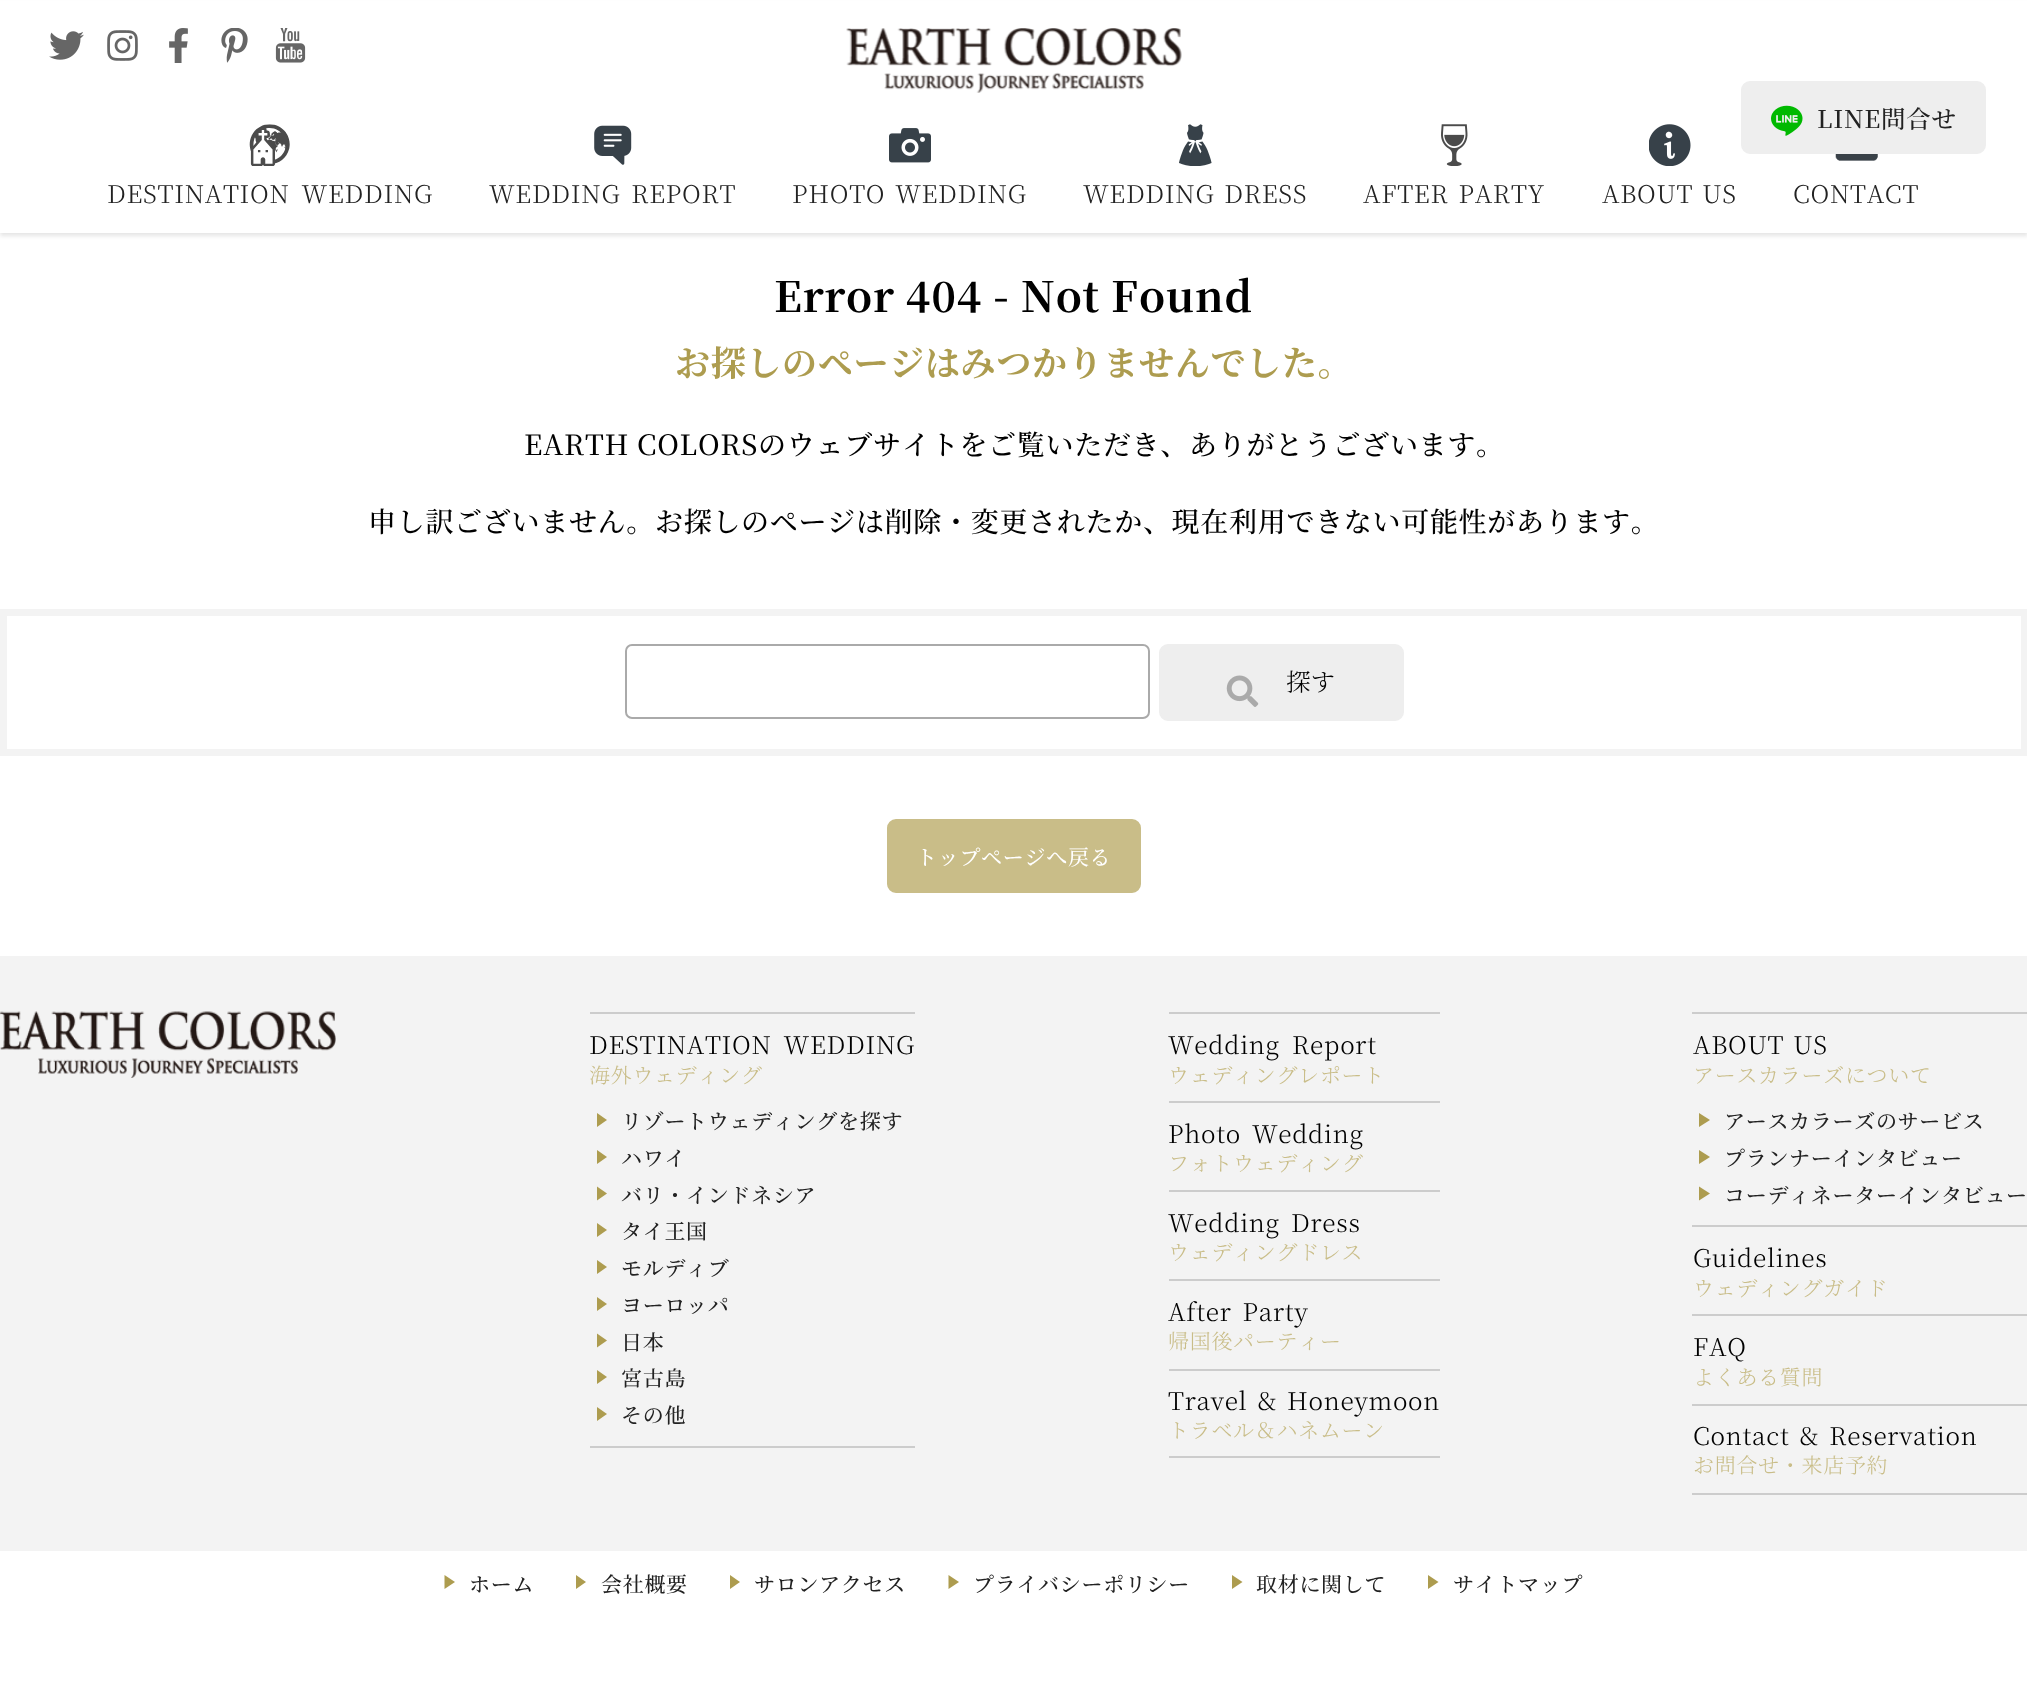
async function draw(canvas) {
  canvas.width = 2027;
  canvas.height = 1692;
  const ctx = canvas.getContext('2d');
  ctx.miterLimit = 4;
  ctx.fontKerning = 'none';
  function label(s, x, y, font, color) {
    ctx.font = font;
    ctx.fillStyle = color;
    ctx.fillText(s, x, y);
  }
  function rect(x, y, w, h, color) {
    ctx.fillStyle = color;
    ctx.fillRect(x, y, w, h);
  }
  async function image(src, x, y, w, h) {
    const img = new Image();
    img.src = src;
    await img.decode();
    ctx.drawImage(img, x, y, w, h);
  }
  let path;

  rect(0, 0, 2027, 1692, '#fff');
  ctx.fillStyle = '#0000001a';
  ctx.filter = 'blur(2px)';
  ctx.beginPath();
  ctx.rect(0, 4, 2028, 232);
  ctx.fill();
  ctx.filter = 'none';
  rect(0, 1, 2027, 232, '#fff');
  await image('assets/img1.png', 846, 28, 336, 65);
  await image('assets/img2.png', 49, 31, 35, 29);
  await image('assets/img3.png', 107, 30, 31, 31);
  await image('assets/img4.png', 169, 28, 19, 35);
  await image('assets/img5.png', 221, 28, 27, 35);
  await image('assets/img6.png', 275, 28, 31, 35);
  ctx.fillStyle = '#eee';
  ctx.beginPath();
  ctx.roundRect(1742, 82, 243, 71, 8);
  ctx.fill();
  ctx.strokeStyle = '#eee';
  ctx.lineWidth = 2;
  ctx.stroke();
  await image('assets/img7.png', 1771, 105, 32, 31);
  ctx.letterSpacing = '0.7px';
  label('LINE問合せ', 1817, 128, '500 24.5px Noto Serif JP', '#222');
  await image('assets/img8.png', 249, 124, 41, 42);
  ctx.wordSpacing = '5px';
  label('DESTINATION WEDDING', 107, 203, '300 24.5px Noto Serif JP', '#222');
  await image('assets/img9.png', 594, 125, 38, 40);
  ctx.wordSpacing = '4px';
  label('WEDDING REPORT', 489, 203, '300 24.5px Noto Serif JP', '#222');
  await image('assets/img10.png', 889, 128, 42, 35);
  ctx.wordSpacing = '3px';
  label('PHOTO WEDDING', 792, 203, '300 24.5px Noto Serif JP', '#222');
  await image('assets/img11.png', 1179, 124, 33, 42);
  label('WEDDING DRESS', 1083, 203, '300 24.5px Noto Serif JP', '#222');
  await image('assets/img12.png', 1441, 124, 27, 42);
  label('AFTER PARTY', 1363, 203, '300 24.5px Noto Serif JP', '#222');
  await image('assets/img13.png', 1649, 124, 42, 42);
  ctx.wordSpacing = '2px';
  label('ABOUT US', 1602, 203, '300 24.5px Noto Serif JP', '#222');
  await image('assets/img14.png', 1835, 154, 43, 7);
  ctx.wordSpacing = '0px';
  label('CONTACT', 1793, 203, '300 24.5px Noto Serif JP', '#222');
  label('Error 404 - Not Found', 774, 312, 'bold 42px Noto Serif JP', '#000');
  label('お探しのページはみつかりませんでした。', 675, 376, 'bold 35px Noto Serif JP', '#ad9c4f');
  label('EARTH COLORSのウェブサ', 524, 455, '500 28px Noto Serif JP', '#000');
  label('イトをご覧いただき、ありがとうございます。', 902, 455, '500 28px Noto Serif JP', '#000');
  label('申し訳ございません。お探しのページは削除・変更されたか、現在利用できない可能性があります。', 368, 532, '500 28px Noto Serif JP', '#000');
  ctx.strokeStyle = '#f3f3f3';
  ctx.lineWidth = 7;
  ctx.strokeRect(3.5, 612.5, 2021, 140);
  ctx.beginPath();
  ctx.roundRect(626, 645, 523, 73, 6);
  ctx.strokeStyle = '#aaa';
  ctx.lineWidth = 2;
  ctx.stroke();
  ctx.fillStyle = '#eee';
  ctx.beginPath();
  ctx.roundRect(1160, 645, 243, 75, 8);
  ctx.fill();
  ctx.strokeStyle = '#eee';
  ctx.stroke();
  await image('assets/img15.png', 1226, 675, 33, 32);
  ctx.letterSpacing = '0px';
  label('探す', 1286, 691, '300 24.5px Noto Serif JP', '#000');
  ctx.fillStyle = '#c9bd88';
  ctx.beginPath();
  ctx.roundRect(888, 820, 252, 72, 8);
  ctx.fill();
  ctx.strokeStyle = '#c9bd88';
  ctx.stroke();
  ctx.letterSpacing = '0.7px';
  label('トップページへ戻る', 916, 865, '500 21px Noto Serif JP', '#fff');
  rect(0, 956, 2027, 595, '#f3f3f3');
  await image('assets/img16.png', 0, 1011, 336, 67);
  rect(590, 1012, 325, 2, '#ccc');
  rect(590, 1446, 325, 2, '#ccc');
  ctx.wordSpacing = '5px';
  label('DESTINATION WEDDING', 589, 1054, '300 24.5px Noto Serif JP', '#000');
  ctx.wordSpacing = '0px';
  label('海外ウェディング', 589, 1083, '300 21px Noto Serif JP', '#c9bd88');
  ctx.fillStyle = '#ad9c4f';
  path = new Path2D('M597 1127V1113L607 1120Z');
  ctx.fill(path);
  label('リゾートウェディングを探す', 621, 1129, '500 21px Noto Serif JP', '#222');
  ctx.fillStyle = '#ad9c4f';
  path = new Path2D('M597 1164V1150L607 1157Z');
  ctx.fill(path);
  label('ハワイ', 621, 1166, '500 21px Noto Serif JP', '#222');
  ctx.fillStyle = '#ad9c4f';
  path = new Path2D('M597 1200.5V1186.5L607 1193.5Z');
  ctx.fill(path);
  label('バリ・インドネシア', 621, 1203, '500 21px Noto Serif JP', '#222');
  ctx.fillStyle = '#ad9c4f';
  path = new Path2D('M597 1237V1223L607 1230Z');
  ctx.fill(path);
  label('タイ王国', 621, 1239, '500 21px Noto Serif JP', '#222');
  ctx.fillStyle = '#ad9c4f';
  path = new Path2D('M597 1274V1260L607 1267Z');
  ctx.fill(path);
  label('モルディブ', 621, 1276, '500 21px Noto Serif JP', '#222');
  ctx.fillStyle = '#ad9c4f';
  path = new Path2D('M597 1311V1297L607 1304Z');
  ctx.fill(path);
  label('ヨーロッパ', 621, 1313, '500 21px Noto Serif JP', '#222');
  ctx.fillStyle = '#ad9c4f';
  path = new Path2D('M597 1347.5V1333.5L607 1340.5Z');
  ctx.fill(path);
  label('日本', 621, 1350, '500 21px Noto Serif JP', '#222');
  ctx.fillStyle = '#ad9c4f';
  path = new Path2D('M597 1384V1370L607 1377Z');
  ctx.fill(path);
  label('宮古島', 621, 1386, '500 21px Noto Serif JP', '#222');
  ctx.fillStyle = '#ad9c4f';
  path = new Path2D('M597 1421V1407L607 1414Z');
  ctx.fill(path);
  label('その他', 621, 1423, '500 21px Noto Serif JP', '#222');
  rect(1169, 1012, 271, 2, '#ccc');
  rect(1169, 1101, 271, 2, '#ccc');
  ctx.wordSpacing = '5px';
  label('Wedding Report', 1168, 1054, '300 24.5px Noto Serif JP', '#000');
  ctx.wordSpacing = '0px';
  label('ウェディングレポート', 1168, 1083, '300 21px Noto Serif JP', '#c9bd88');
  rect(1169, 1190, 271, 2, '#ccc');
  ctx.wordSpacing = '4px';
  label('Photo Wedding', 1168, 1143, '300 24.5px Noto Serif JP', '#000');
  ctx.wordSpacing = '0px';
  label('フォトウェディン', 1168, 1171, '300 21px Noto Serif JP', '#c9bd88');
  label('グ', 1342, 1171, '300 21px Noto Serif JP', '#c9bd88');
  rect(1169, 1279, 271, 2, '#ccc');
  ctx.wordSpacing = '4px';
  label('Wedding Dress', 1168, 1232, '300 24.5px Noto Serif JP', '#000');
  ctx.wordSpacing = '0px';
  label('ウェディングドレス', 1168, 1260, '300 21px Noto Serif JP', '#c9bd88');
  rect(1169, 1369, 271, 2, '#ccc');
  ctx.wordSpacing = '4px';
  label('After Party', 1168, 1321, '300 24.5px Noto Serif JP', '#000');
  ctx.wordSpacing = '0px';
  label('帰国後パーティー', 1168, 1349, '300 21px Noto Serif JP', '#c9bd88');
  rect(1169, 1456, 271, 2, '#ccc');
  ctx.wordSpacing = '3px';
  label('Travel & Honeymoon', 1168, 1410, '300 24.5px Noto Serif JP', '#000');
  ctx.wordSpacing = '0px';
  label('トラベル＆ハネムーン', 1168, 1438, '300 21px Noto Serif JP', '#c9bd88');
  rect(1692, 1012, 335, 2, '#ccc');
  rect(1692, 1225, 335, 2, '#ccc');
  ctx.wordSpacing = '2px';
  label('ABOUT US', 1693, 1054, '300 24.5px Noto Serif JP', '#000');
  ctx.wordSpacing = '0px';
  label('アースカラーズについて', 1693, 1083, '300 21px Noto Serif JP', '#c9bd88');
  ctx.fillStyle = '#ad9c4f';
  path = new Path2D('M1699 1127V1113L1710 1120Z');
  ctx.fill(path);
  label('アースカラーズのサービス', 1724, 1129, '500 21px Noto Serif JP', '#222');
  ctx.fillStyle = '#ad9c4f';
  path = new Path2D('M1699 1164V1150L1710 1157Z');
  ctx.fill(path);
  label('プランナーインタビュー', 1724, 1166, '500 21px Noto Serif JP', '#222');
  ctx.fillStyle = '#ad9c4f';
  path = new Path2D('M1699 1200.5V1186.5L1710 1193.5Z');
  ctx.fill(path);
  label('コーディネーターインタビュー', 1724, 1203, '500 21px Noto Serif JP', '#222');
  rect(1692, 1314, 335, 2, '#ccc');
  label('Guidelines', 1693, 1267, '300 24.5px Noto Serif JP', '#000');
  label('ウェディングガイド', 1693, 1296, '300 21px Noto Serif JP', '#c9bd88');
  rect(1692, 1404, 335, 2, '#ccc');
  label('FAQ', 1693, 1356, '300 24.5px Noto Serif JP', '#000');
  label('よくある質問', 1693, 1385, '300 21px Noto Serif JP', '#c9bd88');
  rect(1692, 1493, 335, 2, '#ccc');
  ctx.wordSpacing = '3px';
  label('Contact & Reservation', 1693, 1445, '300 24.5px Noto Serif JP', '#000');
  ctx.wordSpacing = '0px';
  label('お問合せ・来店予約', 1693, 1473, '300 21px Noto Serif JP', '#c9bd88');
  ctx.fillStyle = '#ad9c4f';
  path = new Path2D('M444.5 1589V1575L455 1582Z');
  ctx.fill(path);
  label('ホーム', 469, 1592, '500 21px Noto Serif JP', '#222');
  ctx.fillStyle = '#ad9c4f';
  path = new Path2D('M576 1589V1575L586 1582Z');
  ctx.fill(path);
  label('会社概要', 601, 1592, '500 21px Noto Serif JP', '#222');
  ctx.fillStyle = '#ad9c4f';
  path = new Path2D('M730 1589V1575L740 1582Z');
  ctx.fill(path);
  label('サロンアクセス', 754, 1592, '500 21px Noto Serif JP', '#222');
  ctx.fillStyle = '#ad9c4f';
  path = new Path2D('M948.5 1589V1575L959 1582Z');
  ctx.fill(path);
  label('プライバシーポリシー', 973, 1592, '500 21px Noto Serif JP', '#222');
  ctx.fillStyle = '#ad9c4f';
  path = new Path2D('M1232 1589V1575L1242.5 1582Z');
  ctx.fill(path);
  label('取材に関して', 1256, 1592, '500 21px Noto Serif JP', '#222');
  ctx.fillStyle = '#ad9c4f';
  path = new Path2D('M1428 1589V1575L1438.5 1582Z');
  ctx.fill(path);
  label('サイトマップ', 1453, 1592, '500 21px Noto Serif JP', '#222');
}

draw(document.querySelector('canvas'));
